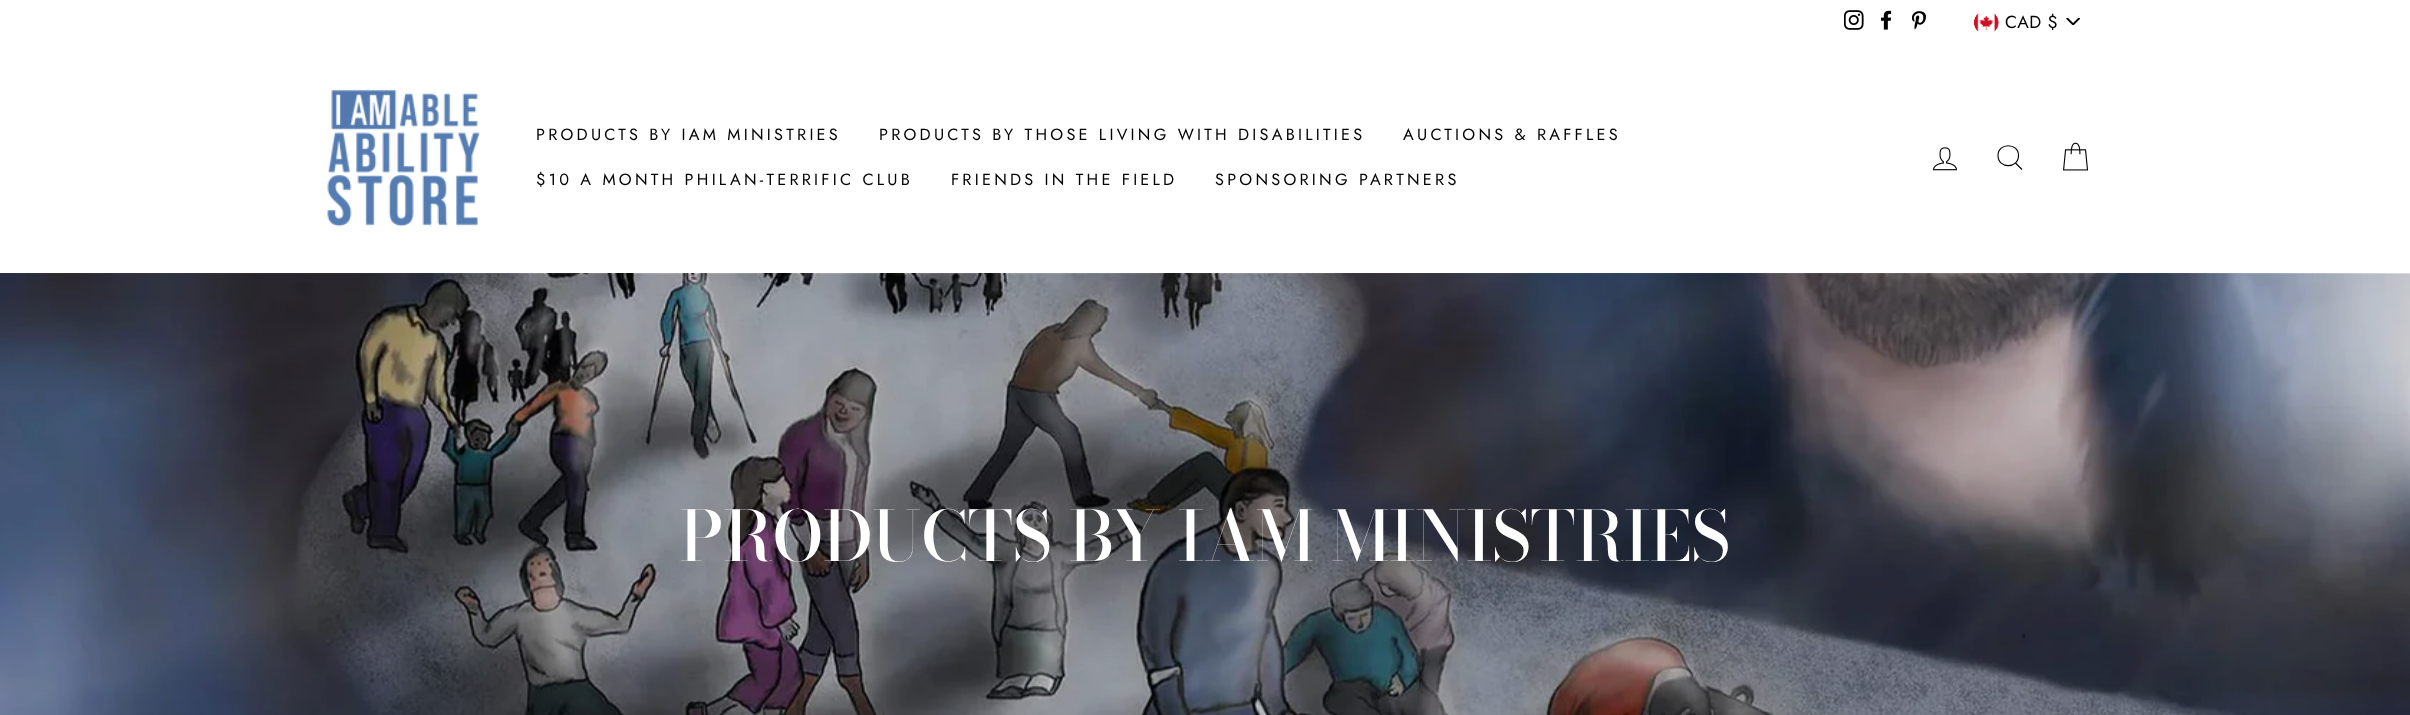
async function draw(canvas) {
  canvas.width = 2410;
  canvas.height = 715;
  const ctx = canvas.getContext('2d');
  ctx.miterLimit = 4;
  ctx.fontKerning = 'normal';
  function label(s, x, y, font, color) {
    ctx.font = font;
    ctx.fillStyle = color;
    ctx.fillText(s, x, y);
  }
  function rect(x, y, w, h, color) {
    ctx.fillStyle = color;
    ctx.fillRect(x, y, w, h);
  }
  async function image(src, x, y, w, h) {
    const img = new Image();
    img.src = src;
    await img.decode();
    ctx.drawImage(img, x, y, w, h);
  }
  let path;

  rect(0, 0, 2410, 715, '#fff');
  await image('assets/img1.png', 1844, 10, 20, 20);
  await image('assets/img2.png', 1881, 10, 11, 20);
  await image('assets/img3.png', 1911, 11, 15, 19);
  await image('assets/img4.png', 2066, 18, 14, 7);
  await image('assets/img5.png', 1973, 13, 26, 19);
  ctx.letterSpacing = '0.5px';
  label('CAD $', 2005, 28, '17.5px Jost', '#000');
  await image('assets/img6.png', 327, 89, 153, 138);
  ctx.letterSpacing = '3.25px';
  label('PRODUCTS BY IAM MINISTRIES', 536, 140, '16.25px Jost', '#000');
  label('PRODUCTS BY THOSE LIVING WITH DISABILITIES', 879, 140, '16.25px Jost', '#000');
  label('AUCTIONS & RAFFLES', 1403, 140, '16.25px Jost', '#000');
  label('$10 A MONTH PHILAN-TERRIFIC CLUB', 536, 185, '16.25px Jost', '#000');
  label('FRIENDS IN THE FIELD', 951, 185, '16.25px Jost', '#000');
  label('SPONSORING PARTNERS', 1215, 185, '16.25px Jost', '#000');
  await image('assets/img7.png', 1933, 147, 24, 24);
  path = new Path2D('M2018.5 155.5C2018.5 169 1998 169 1998 155.5C1998 142.5 2018.5 142.5 2018.5 155.5ZM2022 169.5L2015.5 163');
  ctx.strokeStyle = '#000';
  ctx.lineWidth = 1.1;
  ctx.stroke(path);
  await image('assets/img8.png', 2063, 142, 26, 29);
  await image('assets/img9.png', 0, 273, 2410, 442);
  ctx.letterSpacing = '0px';
  label('PRODUCTS BY IAM MINISTRIES', 680, 561, '500 68.9px Bodoni Moda', '#fff');
}

draw(document.querySelector('canvas'));
